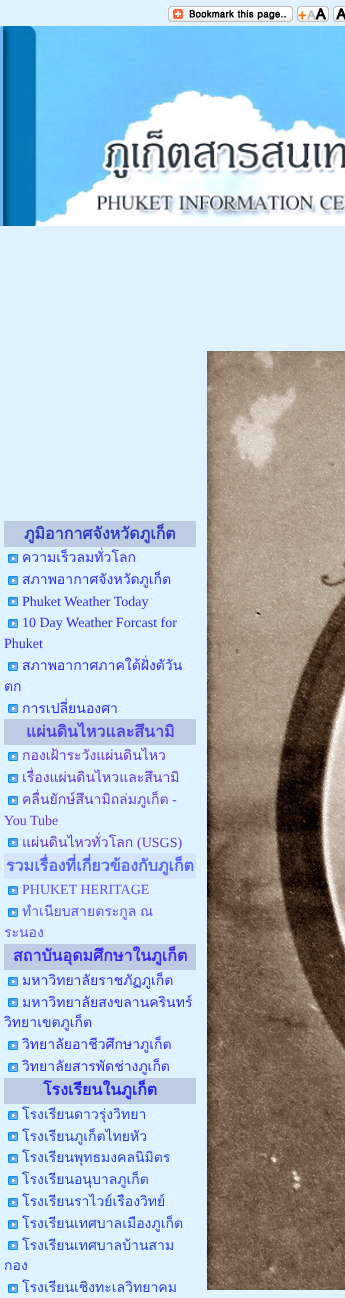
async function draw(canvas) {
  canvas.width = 345;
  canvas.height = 1298;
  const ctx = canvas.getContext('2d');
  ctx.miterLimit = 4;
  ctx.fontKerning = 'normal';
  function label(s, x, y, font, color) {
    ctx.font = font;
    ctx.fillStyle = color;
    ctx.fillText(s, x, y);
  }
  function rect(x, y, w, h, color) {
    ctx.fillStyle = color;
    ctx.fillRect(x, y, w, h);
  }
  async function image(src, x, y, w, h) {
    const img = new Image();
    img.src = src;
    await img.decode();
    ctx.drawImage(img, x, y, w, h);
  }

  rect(0, 0, 345, 1298, '#def3ff');
  await image('assets/img1.png', 168, 6, 125, 16);
  await image('assets/img2.png', 297, 6, 32, 16);
  await image('assets/img3.png', 333, 6, 12, 16);
  await image('assets/img4.png', 0, 26, 345, 200);
  rect(4, 521, 192, 26, '#becce3');
  label('ภูมิอากาศจังหวัดภูเก็ต', 24, 539, 'bold 16px Loma', '#303ac2');
  await image('assets/img5.png', 8, 554, 10, 9);
  label('ความเร็วลมทั่วโลก', 22, 562, '14px Loma', '#2b2bff');
  await image('assets/img5.png', 8, 576, 10, 9);
  label('สภาพอากาศจังหวัดภูเก็ต', 22, 584, '14px Loma', '#2b2bff');
  await image('assets/img5.png', 8, 597, 10, 9);
  label('Phuket Weather Today', 22, 606, '14px Liberation Serif', '#2b2bff');
  await image('assets/img5.png', 8, 619, 10, 9);
  label('10 Day Weather Forcast for', 22, 627, '14px Liberation Serif', '#2b2bff');
  label('Phuket', 4, 648, '14px Liberation Serif', '#2b2bff');
  await image('assets/img5.png', 8, 662, 10, 9);
  label('สภาพอากาศภาคใต้ฝั่งตัวัน', 22, 670, '14px Loma', '#2b2bff');
  label('ตก', 4, 691, '14px Loma', '#2b2bff');
  await image('assets/img5.png', 8, 704, 10, 9);
  label('การเปลี่ยนองศา', 22, 713, '14px Loma', '#2b2bff');
  rect(4, 719, 192, 26, '#becce3');
  label('แผ่นดินไหวและสึนามิ', 26, 737, 'bold 16px Loma', '#4f44eb');
  await image('assets/img5.png', 8, 752, 10, 9);
  label('กองเฝ้าระวังแผ่นดินไหว', 22, 760, '14px Loma', '#6736d9');
  await image('assets/img5.png', 8, 774, 10, 9);
  label('เรื่องแผ่นดินไหวและสึนามิ', 22, 782, '14px Loma', '#6736d9');
  await image('assets/img5.png', 8, 796, 10, 9);
  label('คลื่นยักษ์สึนามิถล่มภูเก็ต', 22, 804, '14px Loma', '#6736d9');
  label('-', 172, 804, '14px Liberation Serif', '#6736d9');
  label('You Tube', 4, 825, '14px Liberation Serif', '#6736d9');
  await image('assets/img5.png', 8, 838, 10, 9);
  label('แผ่นดินไหวทั่วโลก', 22, 847, '14px Loma', '#6736d9');
  label('(USGS)', 137, 847, '14px Liberation Serif', '#6736d9');
  rect(4, 853, 192, 26, '#d6e5ff');
  label('รวมเรื่องที่เกี่ยวข้องกับภูเก็ต', 6, 871, 'bold 16px Loma', '#5465ff');
  await image('assets/img5.png', 8, 886, 10, 9);
  label('PHUKET HERITAGE', 22, 894, '14px Liberation Serif', '#5b4fff');
  await image('assets/img5.png', 8, 908, 10, 9);
  ctx.wordSpacing = '-1px';
  label('ทำเนียบสายตระกูล ณ', 22, 916, '14px Loma', '#5b4fff');
  ctx.wordSpacing = '0px';
  label('ระนอง', 4, 937, '14px Loma', '#5b4fff');
  rect(4, 944, 192, 26, '#becce3');
  label('สถาบันอุดมศึกษาในภูเก็ต', 13, 961, 'bold 16px Loma', '#3729ff');
  await image('assets/img5.png', 8, 977, 10, 9);
  label('มหาวิทยาลัยราชภัฏภูเก็ต', 22, 985, '14px Loma', '#2b2bff');
  await image('assets/img5.png', 8, 998, 10, 9);
  label('มหาวิทยาลัยสงขลานครินทร์', 22, 1007, '14px Loma', '#2b2bff');
  label('วิทยาเขตภูเก็ต', 4, 1027, '14px Loma', '#2b2bff');
  await image('assets/img5.png', 8, 1041, 10, 9);
  label('วิทยาลัยอาชีวศึกษาภูเก็ต', 22, 1049, '14px Loma', '#2b2bff');
  await image('assets/img5.png', 8, 1063, 10, 9);
  label('วิทยาลัยสารพัดช่างภูเก็ต', 22, 1071, '14px Loma', '#2b2bff');
  rect(4, 1078, 192, 26, '#becce3');
  label('โรงเรียนในภูเก็ต', 43, 1095, 'bold 16px Loma', '#2121ff');
  await image('assets/img5.png', 8, 1111, 10, 9);
  label('โรงเรียนดาวรุ่งวิทยา', 22, 1119, '14px Loma', '#253ee6');
  await image('assets/img5.png', 8, 1132, 10, 9);
  label('โรงเรียนภูเก็ตไทยหัว', 22, 1141, '14px Loma', '#253ee6');
  await image('assets/img5.png', 8, 1154, 10, 9);
  label('โรงเรียนพุทธมงคลนิมิตร', 22, 1162, '14px Loma', '#253ee6');
  await image('assets/img5.png', 8, 1176, 10, 9);
  label('โรงเรียนอนุบาลภูเก็ต', 22, 1184, '14px Loma', '#253ee6');
  await image('assets/img5.png', 8, 1198, 10, 9);
  label('โรงเรียนราไวย์เรืองวิทย์', 22, 1206, '14px Loma', '#253ee6');
  await image('assets/img5.png', 8, 1220, 10, 9);
  label('โรงเรียนเทศบาลเมืองภูเก็ต', 22, 1228, '14px Loma', '#253ee6');
  await image('assets/img5.png', 8, 1241, 10, 9);
  label('โรงเรียนเทศบาลบ้านสาม', 22, 1250, '14px Loma', '#253ee6');
  label('กอง', 4, 1270, '14px Loma', '#253ee6');
  await image('assets/img5.png', 8, 1284, 10, 9);
  label('โรงเรียนเชิงทะเลวิทยาคม', 22, 1292, '14px Loma', '#253ee6');
  await image('assets/img6.png', 207, 351, 138, 939);
}

draw(document.querySelector('canvas'));
